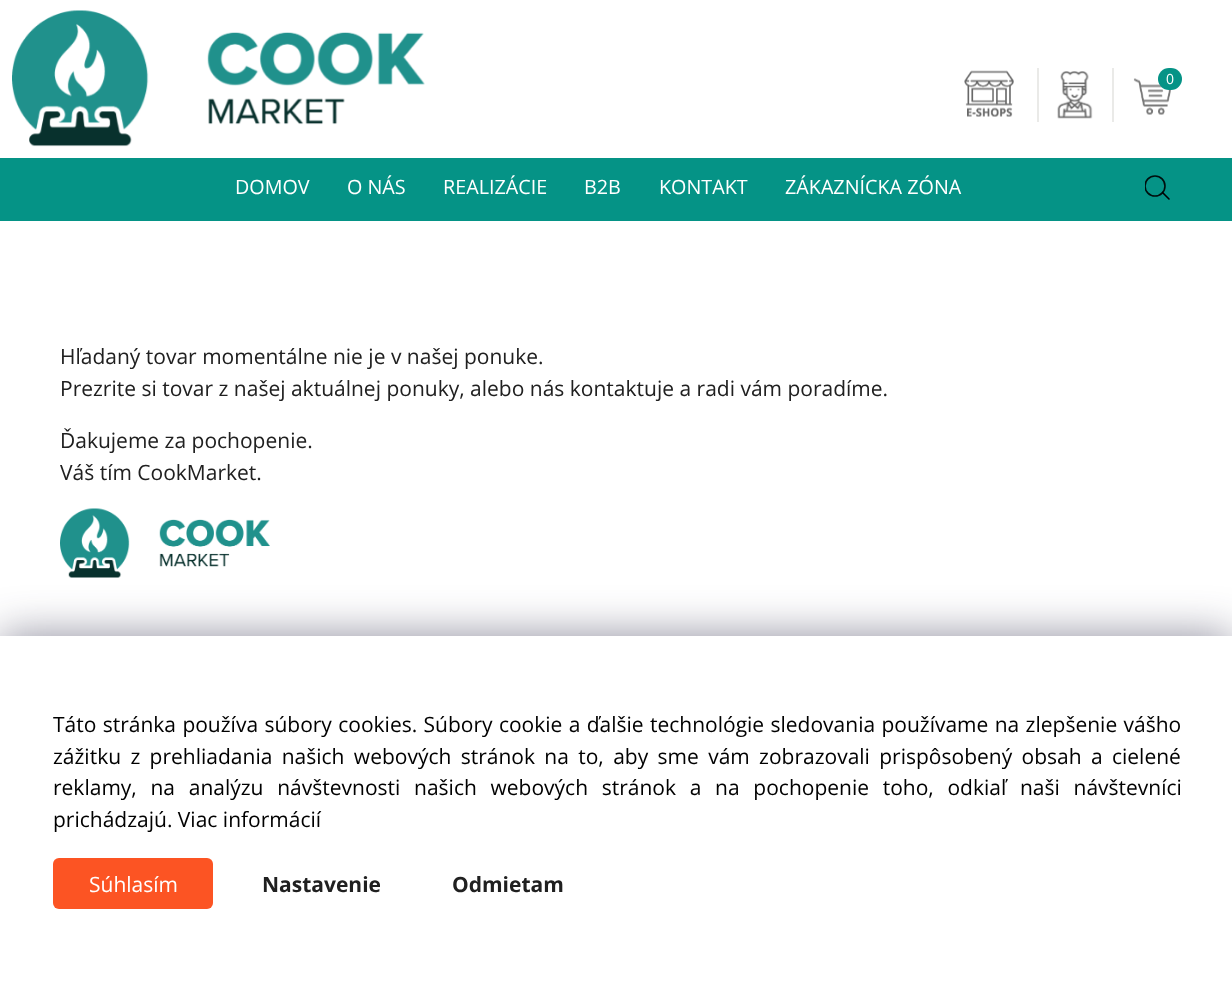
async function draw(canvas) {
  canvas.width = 1232;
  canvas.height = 981;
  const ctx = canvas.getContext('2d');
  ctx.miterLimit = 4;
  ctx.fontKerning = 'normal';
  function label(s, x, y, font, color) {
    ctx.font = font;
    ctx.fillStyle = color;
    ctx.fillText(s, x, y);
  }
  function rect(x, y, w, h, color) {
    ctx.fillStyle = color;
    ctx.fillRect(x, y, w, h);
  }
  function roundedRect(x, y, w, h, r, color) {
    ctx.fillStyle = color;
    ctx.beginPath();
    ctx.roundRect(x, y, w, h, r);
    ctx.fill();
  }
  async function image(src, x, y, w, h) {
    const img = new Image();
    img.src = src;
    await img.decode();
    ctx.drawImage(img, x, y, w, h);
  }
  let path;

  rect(0, 0, 1232, 981, '#fff');
  await image('assets/img1.png', 12, 10, 413, 137);
  rect(0, 158, 1232, 63, '#059386');
  await image('assets/img2.png', 964, 70, 50, 47);
  rect(1037, 68, 2, 54, '#eaeae8');
  await image('assets/img3.png', 1057, 71, 36, 48);
  rect(1112, 68, 2, 54, '#eaeae8');
  await image('assets/img4.png', 1133, 78, 39, 37);
  roundedRect(1158, 68, 24, 22, 11, '#059386');
  label('0', 1166, 84, '14px Open Sans', '#fff');
  ctx.save();
  ctx.beginPath();
  ctx.rect(1145, 174, 30, 27);
  ctx.clip();
  ctx.beginPath();
  ctx.arc(1155, 186, 10, 0, 2 * Math.PI);
  ctx.strokeStyle = '#000e0d';
  ctx.lineWidth = 1.6;
  ctx.stroke();
  ctx.restore();
  path = new Path2D('M1162.5 192.5L1169 199');
  ctx.strokeStyle = '#000';
  ctx.lineWidth = 1.6;
  ctx.lineCap = 'round';
  ctx.stroke(path);
  label('DOMOV', 235, 194, '19.75px Open Sans', '#fff');
  label('O NÁS', 347, 194, '19.75px Open Sans', '#fff');
  label('REALIZÁCIE', 443, 194, '19.75px Open Sans', '#fff');
  label('B2B', 584, 194, '19.75px Open Sans', '#fff');
  label('KONTAKT', 659, 194, '19.75px Open Sans', '#fff');
  label('ZÁKAZNÍCKA ZÓNA', 785, 194, '19.75px Open Sans', '#fff');
  label('Hľadaný tovar momentálne nie je v našej ponuke.', 60, 364, '21px Open Sans', '#202020');
  label('Prezrite si tovar z našej aktuálnej ponuky, alebo nás kontaktuje a radi vám poradíme.', 60, 396, '21px Open Sans', '#202020');
  label('Ďakujeme za pochopenie.', 60, 448, '21px Open Sans', '#202020');
  label('Váš tím CookMarket.', 60, 480, '21px Open Sans', '#202020');
  await image('assets/img5.png', 60, 508, 210, 70);
  ctx.fillStyle = '#1b193980';
  ctx.filter = 'blur(22.5px)';
  ctx.beginPath();
  ctx.rect(0, 636, 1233, 345);
  ctx.fill();
  ctx.filter = 'none';
  rect(0, 636, 1232, 345, '#fff');
  ctx.wordSpacing = '0.9px';
  label('Táto stránka používa súbory cookies. Súbory cookie a ďalšie technológie sledovania používame na zlepšenie vášho', 53, 732, '21px Open Sans', '#000');
  ctx.wordSpacing = '3.9px';
  label('zážitku z prehliadania našich webových stránok na to, aby sme vám zobrazovali prispôsobený obsah a cielené', 53, 764, '21px Open Sans', '#000');
  ctx.wordSpacing = '8.25px';
  label('reklamy, na analýzu návštevnosti našich webových stránok a na pochopenie toho, odkiaľ naši návštevníci', 53, 795, '21px Open Sans', '#000');
  ctx.wordSpacing = '0px';
  label('prichádzajú. Viac informácií', 53, 827, '21px Open Sans', '#000');
  roundedRect(53, 858, 160, 51, 6, '#fc5423');
  label('Súhlasím', 89, 892, '21px Open Sans', '#fff');
  label('Nastavenie', 262, 892, 'bold 21px Open Sans', '#202020');
  label('Odmietam', 452, 892, 'bold 21px Open Sans', '#202020');
}

draw(document.querySelector('canvas'));
